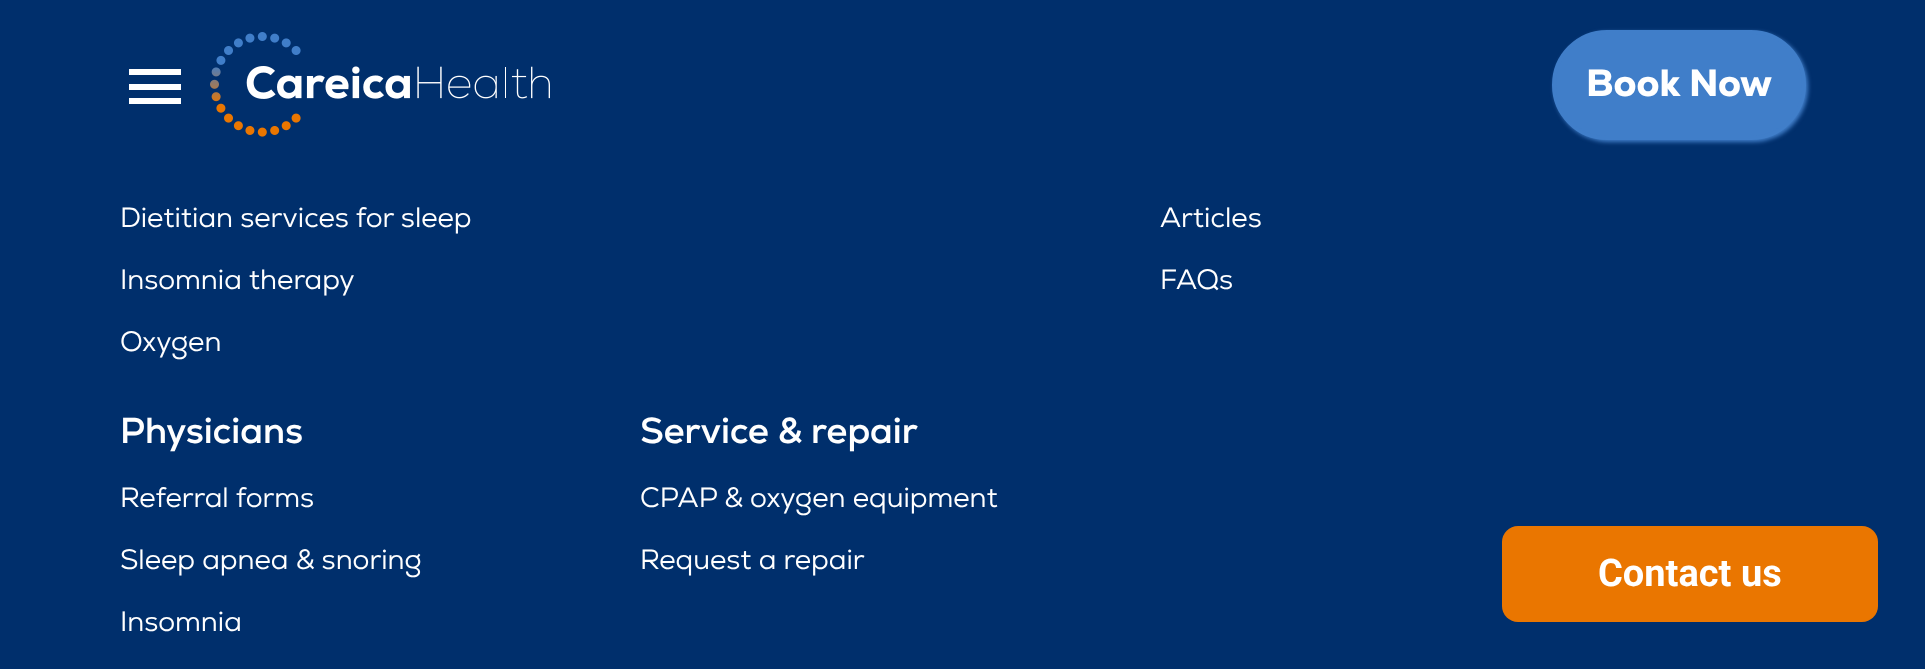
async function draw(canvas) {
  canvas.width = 1925;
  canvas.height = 669;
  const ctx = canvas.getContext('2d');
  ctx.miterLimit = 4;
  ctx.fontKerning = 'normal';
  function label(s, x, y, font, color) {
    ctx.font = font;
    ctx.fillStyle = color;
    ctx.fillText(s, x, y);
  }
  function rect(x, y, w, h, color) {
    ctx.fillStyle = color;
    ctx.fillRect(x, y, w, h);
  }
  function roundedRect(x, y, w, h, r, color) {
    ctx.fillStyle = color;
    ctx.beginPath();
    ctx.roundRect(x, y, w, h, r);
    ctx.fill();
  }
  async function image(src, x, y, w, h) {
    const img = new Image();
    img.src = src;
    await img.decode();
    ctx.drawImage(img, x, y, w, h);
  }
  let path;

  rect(0, 0, 1925, 669, '#002f6c');
  ctx.fillStyle = '#fff';
  path = new Path2D('M129 69H181V75H129ZM129 90V84H181V90ZM129 104V98H181V104Z');
  ctx.fill(path);
  await image('assets/img1.png', 210, 32, 340, 105);
  ctx.fillStyle = '#407ec9';
  ctx.filter = 'blur(2px)';
  ctx.beginPath();
  ctx.roundRect(1554, 32, 254, 110, 55);
  ctx.fill();
  ctx.filter = 'none';
  ctx.beginPath();
  ctx.roundRect(1554, 32, 250, 106, 53);
  ctx.fill();
  ctx.strokeStyle = '#407ec9';
  ctx.lineWidth = 4;
  ctx.stroke();
  label('Book Now', 1586, 96, '900 38px "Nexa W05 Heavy"', '#fff');
  label('Dietitian services for sleep', 120, 227, '28px "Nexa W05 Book"', '#fff');
  label('Insomnia therapy', 120, 289, '28px "Nexa W05 Book"', '#fff');
  label('Oxygen', 120, 351, '28px "Nexa W05 Book"', '#fff');
  label('Articles', 1160, 227, '28px "Nexa W05 Book"', '#fff');
  label('FAQs', 1160, 289, '28px "Nexa W05 Book"', '#fff');
  label('Physicians', 120, 443, 'bold 36px "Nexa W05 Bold"', '#fff');
  label('Referral forms', 120, 507, '28px "Nexa W05 Book"', '#fff');
  label('Sleep apnea & snoring', 120, 569, '28px "Nexa W05 Book"', '#fff');
  label('Insomnia', 120, 631, '28px "Nexa W05 Book"', '#fff');
  label('Service & repair', 640, 443, 'bold 36px "Nexa W05 Bold"', '#fff');
  label('CPAP & oxygen equipment', 640, 507, '28px "Nexa W05 Book"', '#fff');
  label('Request a repair', 640, 569, '28px "Nexa W05 Book"', '#fff');
  roundedRect(1502, 526, 376, 96, 16, '#ea7600');
  label('Contact us', 1598, 586, 'bold 38px Roboto', '#fff');
}

draw(document.querySelector('canvas'));
